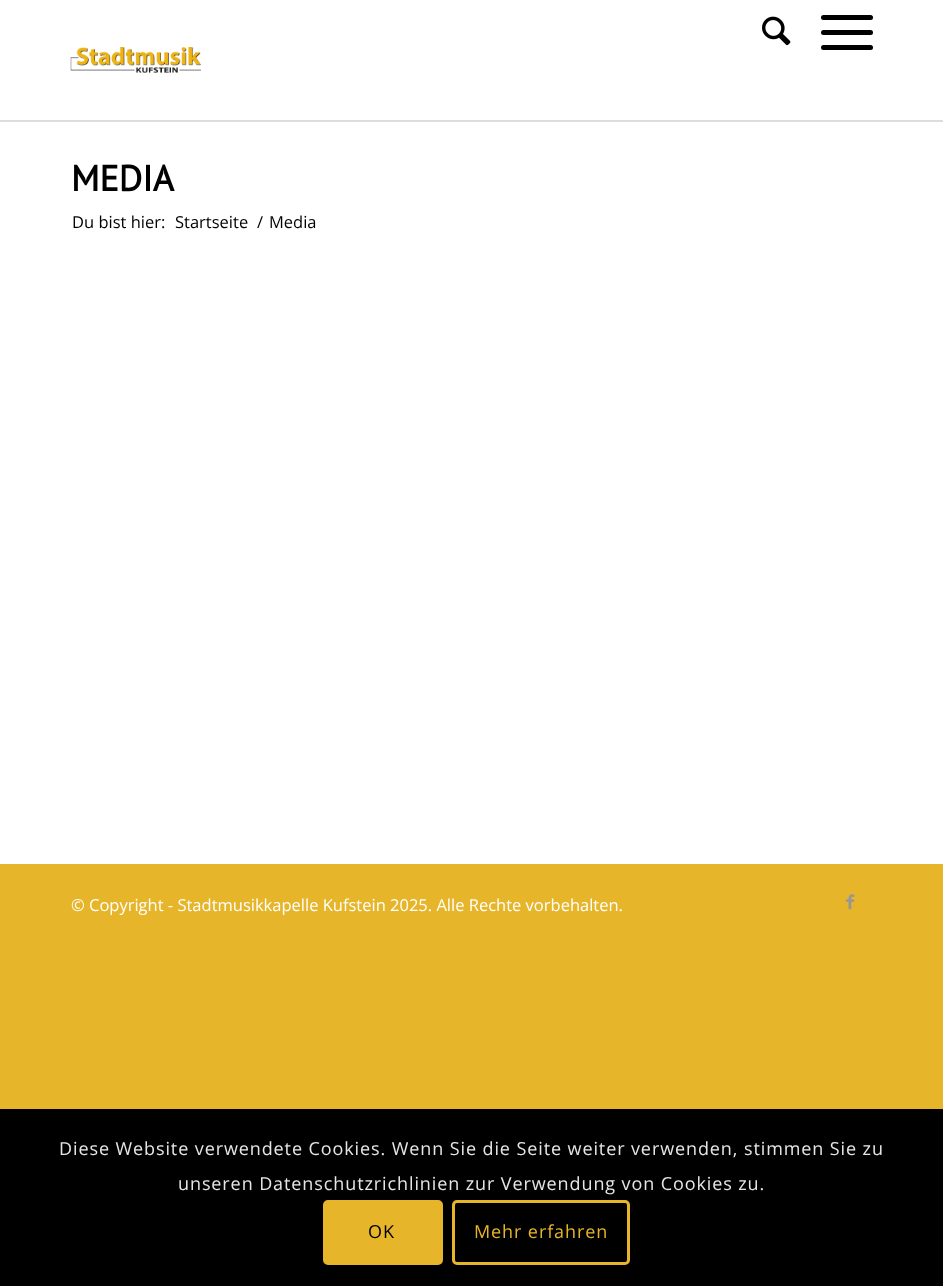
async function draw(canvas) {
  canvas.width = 943;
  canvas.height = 1286;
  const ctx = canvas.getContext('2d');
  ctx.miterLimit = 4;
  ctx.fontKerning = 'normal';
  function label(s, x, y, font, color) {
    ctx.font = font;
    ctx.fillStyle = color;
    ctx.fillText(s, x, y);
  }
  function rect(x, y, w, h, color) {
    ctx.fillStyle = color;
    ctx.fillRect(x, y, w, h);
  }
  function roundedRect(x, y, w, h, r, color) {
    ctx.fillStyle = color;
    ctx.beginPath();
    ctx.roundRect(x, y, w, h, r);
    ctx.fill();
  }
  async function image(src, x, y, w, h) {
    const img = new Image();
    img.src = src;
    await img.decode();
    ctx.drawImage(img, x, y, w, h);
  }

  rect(0, 0, 943, 1286, '#e7b52a');
  rect(0, 0, 943, 120, '#fff');
  rect(0, 120, 943, 2, '#ddd');
  await image('assets/img1.png', 762, 16, 29, 30);
  roundedRect(821, 30, 52, 5, 2.5, '#000');
  roundedRect(821, 15, 52, 5, 2.5, '#000');
  roundedRect(821, 45, 52, 5, 2.5, '#000');
  await image('assets/img2.png', 70, 47, 131, 26);
  rect(0, 122, 943, 742, '#fff');
  label('MEDIA', 71, 191, 'bold 36px PT Sans', '#000');
  label('Du bist hier:', 72, 228, '16.5px Open Sans', '#000');
  label('Startseite', 175, 228, '16.5px Open Sans', '#000');
  label('/', 257, 228, '16.5px Open Sans', '#000');
  label('Media', 269, 228, '16.5px Open Sans', '#000');
  label('© Copyright - Stadtmusikkapelle Kufstein 2025. Alle Rechte vorbehalten.', 71, 911, '16.5px Open Sans', '#fff');
  await image('assets/img3.png', 846, 894, 9, 16);
  rect(0, 1109, 943, 177, '#000');
  ctx.letterSpacing = '0.9px';
  label('Diese Website verwendete Cookies. Wenn Sie die Seite weiter verwenden, stimmen Sie zu', 59, 1155, '18px Open Sans', '#e6e6e6');
  label('unseren Datenschutzrichlinien zur Verwendung von Cookies zu.', 178, 1190, '18px Open Sans', '#e6e6e6');
  ctx.fillStyle = '#e7b52a';
  ctx.beginPath();
  ctx.roundRect(324.5, 1201.5, 117, 62, 3.5);
  ctx.fill();
  ctx.strokeStyle = '#e7b52a';
  ctx.lineWidth = 3;
  ctx.stroke();
  label('OK', 368, 1238, '18px Open Sans', '#000');
  ctx.beginPath();
  ctx.roundRect(453.5, 1201.5, 175, 62, 3.5);
  ctx.stroke();
  label('Mehr erfahren', 474, 1238, '18px Open Sans', '#e7b52a');
}

draw(document.querySelector('canvas'));
